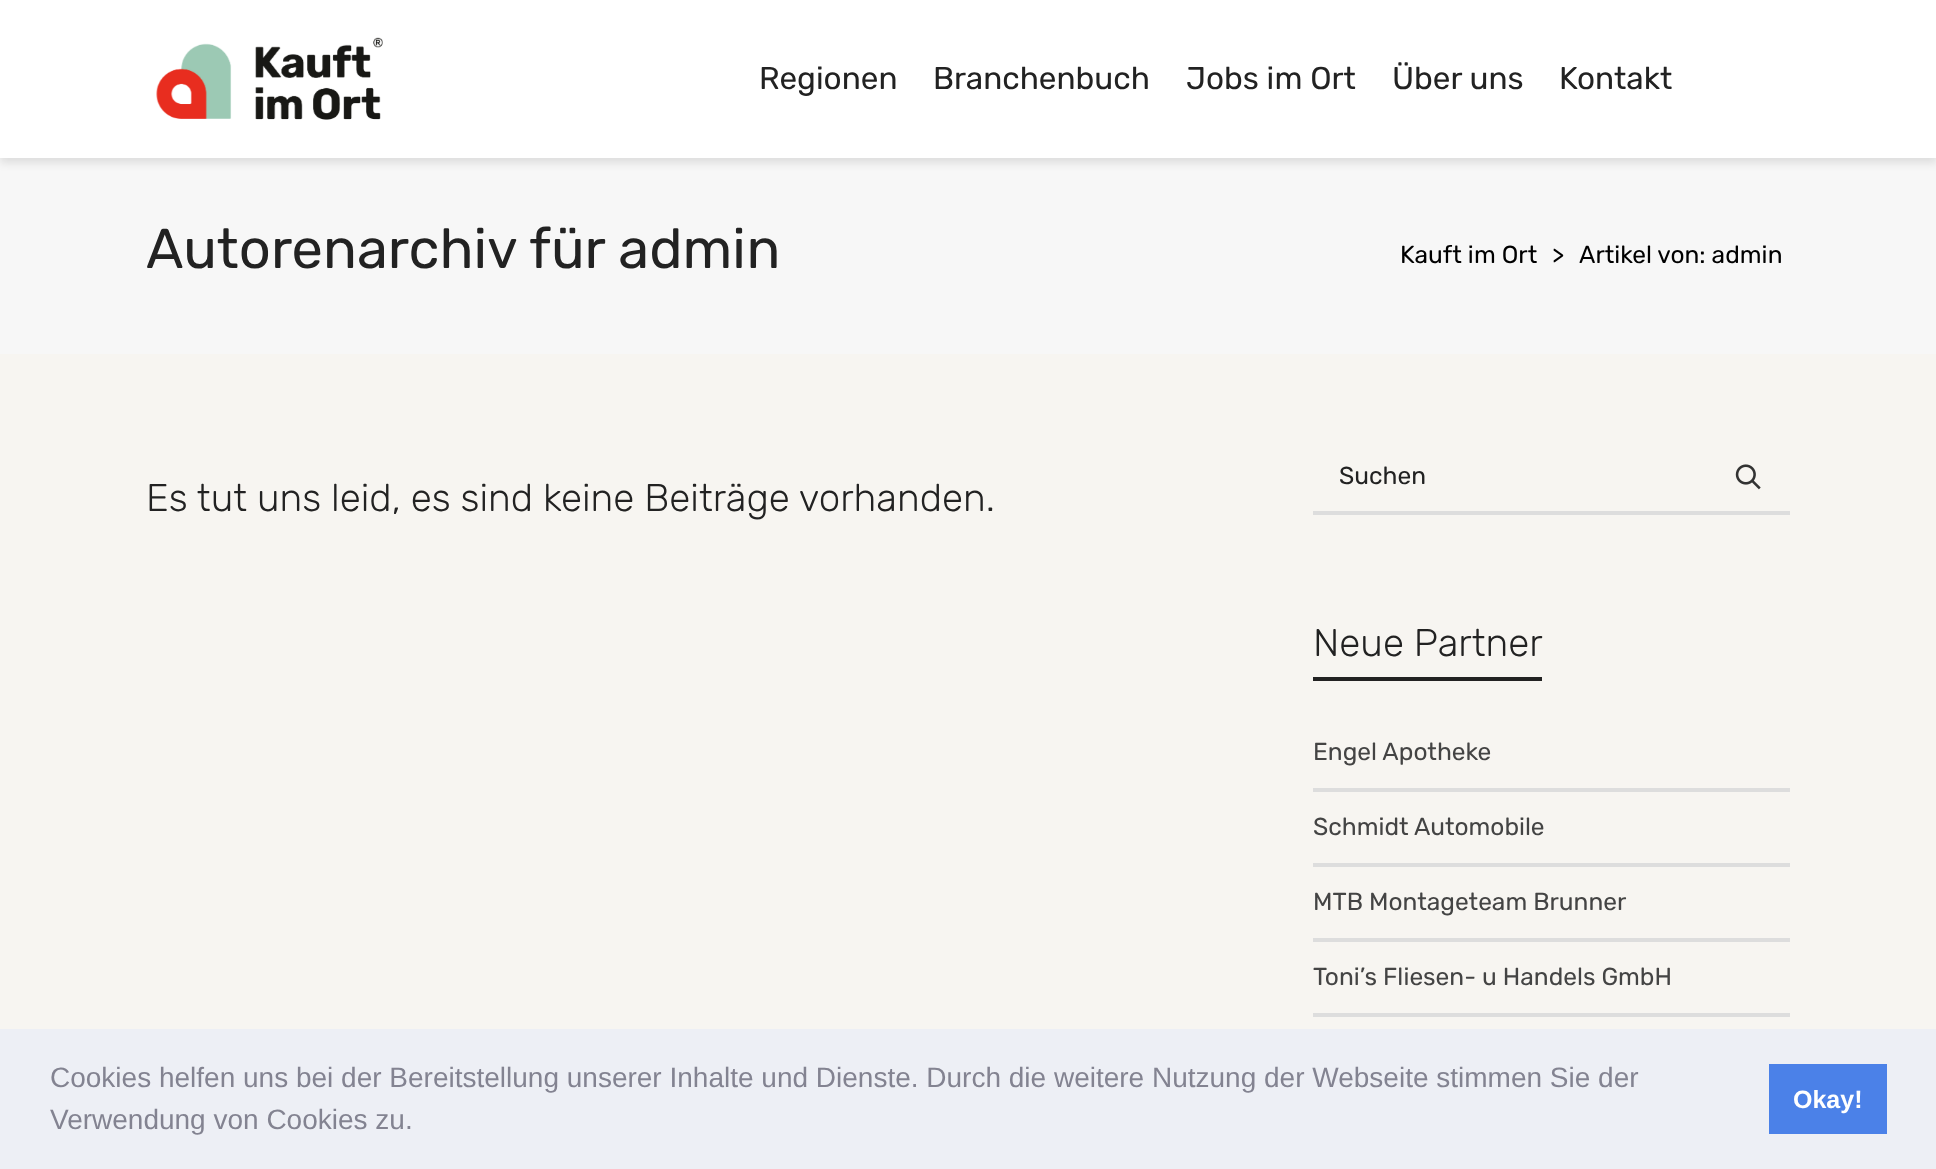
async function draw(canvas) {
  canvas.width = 1936;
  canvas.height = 1169;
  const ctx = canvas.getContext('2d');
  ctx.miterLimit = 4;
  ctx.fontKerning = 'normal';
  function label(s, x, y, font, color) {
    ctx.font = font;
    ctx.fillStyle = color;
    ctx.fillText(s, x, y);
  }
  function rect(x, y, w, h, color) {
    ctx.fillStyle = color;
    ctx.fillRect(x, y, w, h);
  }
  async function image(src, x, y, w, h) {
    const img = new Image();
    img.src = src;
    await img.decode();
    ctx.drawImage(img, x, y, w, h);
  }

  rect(0, 0, 1936, 1169, '#f7f5f1');
  rect(0, 158, 1936, 196, '#f7f7f7');
  ctx.fillStyle = '#0000001a';
  ctx.filter = 'blur(4.5px)';
  ctx.beginPath();
  ctx.rect(0, 5, 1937, 158);
  ctx.fill();
  ctx.filter = 'none';
  rect(0, 0, 1936, 158, '#fff');
  await image('assets/img1.png', 156, 37, 227, 83);
  label('Regionen', 759, 89, '31.5px Rubik', '#222');
  label('Branchenbuch', 933, 89, '31.5px Rubik', '#222');
  label('Jobs im Ort', 1186, 89, '31.5px Rubik', '#222');
  label('Über uns', 1392, 89, '31.5px Rubik', '#222');
  label('Kontakt', 1559, 89, '31.5px Rubik', '#222');
  label('Autorenarchiv für admin', 146, 268, '56px Rubik', '#222');
  label('Kauft im Ort', 1400, 263, '24.5px Rubik', '#000');
  label('>', 1552, 263, '24.5px Rubik', '#000');
  label('Artikel von: admin', 1579, 263, '24.5px Rubik', '#000');
  label('Es tut uns leid, es sind keine Beiträge vorhanden.', 146, 511, '300 38.5px Rubik', '#222');
  rect(1313, 511, 477, 4, '#ddd');
  label('Suchen', 1339, 484, '24.5px Rubik', '#222');
  await image('assets/img2.png', 1735, 464, 26, 26);
  rect(1313, 677, 229, 4, '#222');
  label('Neue Partner', 1313, 656, '300 38.5px Rubik', '#222');
  label('Engel Apotheke', 1313, 760, '24.5px Rubik', '#444');
  rect(1313, 788, 477, 4, '#ddd');
  label('Schmidt Automobile', 1313, 835, '24.5px Rubik', '#444');
  rect(1313, 863, 477, 4, '#ddd');
  label('MTB Montageteam Brunner', 1313, 910, '24.5px Rubik', '#444');
  rect(1313, 938, 477, 4, '#ddd');
  label('Toni’s Fliesen- u Handels GmbH', 1313, 985, '24.5px Rubik', '#444');
  rect(1313, 1013, 477, 4, '#ddd');
  rect(0, 1029, 1936, 140, '#edeff5');
  label('Cookies helfen uns bei der Bereitstellung unserer Inhalte und Dienste. Durch die weitere Nutzung der Webseite stimmen Sie der', 50, 1087, '28px Liberation Sans', '#838391');
  label('Verwendung von Cookies zu.', 50, 1129, '28px Liberation Sans', '#838391');
  rect(1769, 1064, 118, 70, '#4b81e8');
  label('Okay!', 1793, 1108, 'bold 25px Liberation Sans', '#fff');
}

draw(document.querySelector('canvas'));
